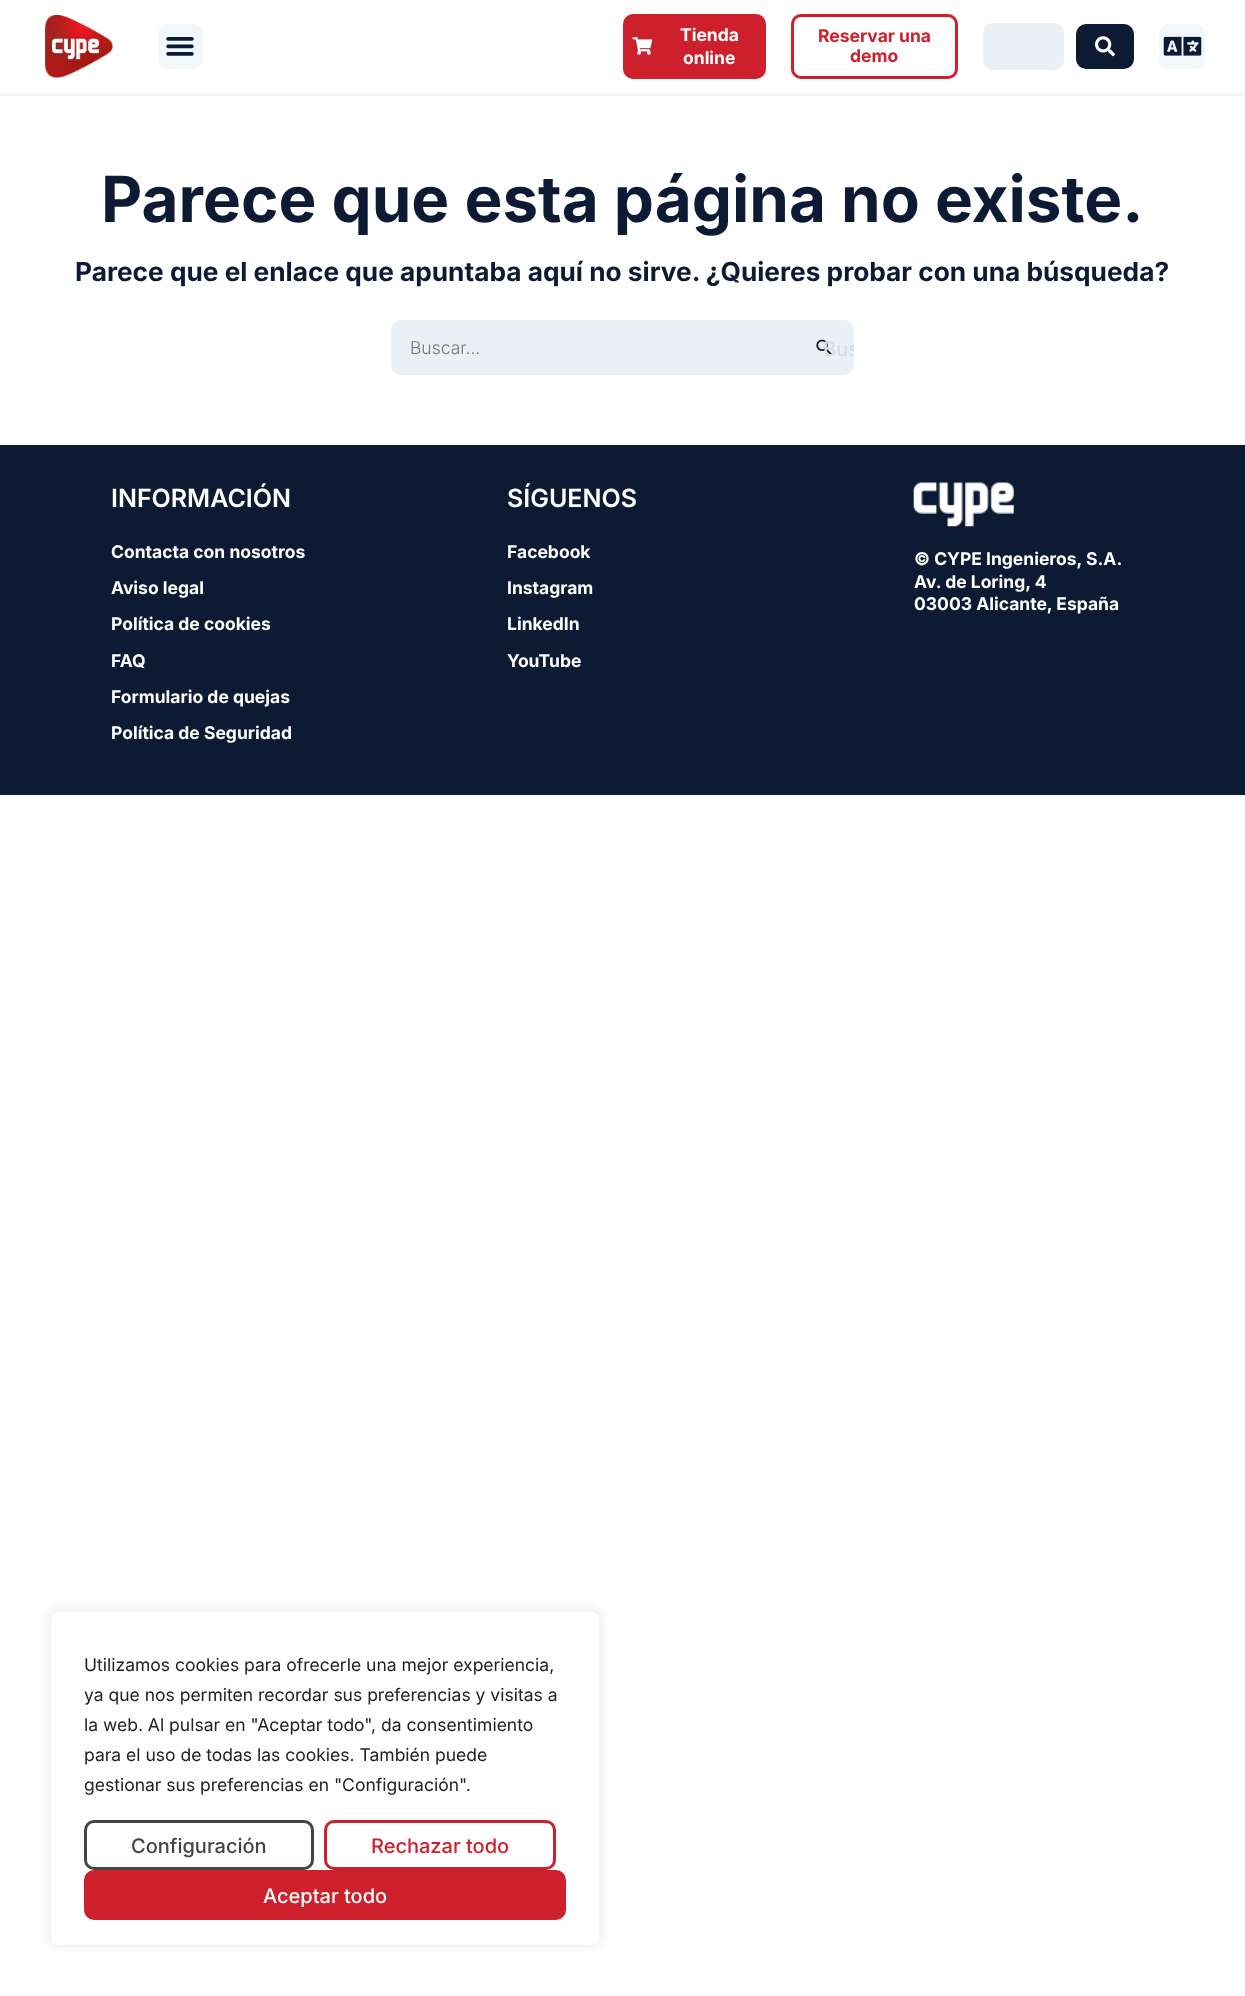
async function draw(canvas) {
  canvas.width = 1245;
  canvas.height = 1996;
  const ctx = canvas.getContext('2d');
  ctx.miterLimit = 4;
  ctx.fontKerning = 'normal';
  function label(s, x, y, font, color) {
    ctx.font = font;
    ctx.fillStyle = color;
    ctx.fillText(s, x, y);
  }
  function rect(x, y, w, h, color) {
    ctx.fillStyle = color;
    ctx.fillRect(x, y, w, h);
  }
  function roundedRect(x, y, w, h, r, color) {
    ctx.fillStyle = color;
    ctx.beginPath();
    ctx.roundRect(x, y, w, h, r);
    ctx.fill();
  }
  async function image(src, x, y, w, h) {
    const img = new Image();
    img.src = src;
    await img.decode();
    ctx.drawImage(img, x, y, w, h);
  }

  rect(0, 0, 1245, 1996, '#fff');
  rect(0, 93, 1245, 3, '#f2f7f9');
  await image('assets/img1.png', 45, 15, 68, 63);
  roundedRect(158, 24, 45, 45, 10, '#f2f7f9');
  await image('assets/img2.png', 166, 37, 28, 19);
  roundedRect(623, 14, 143, 65, 10, '#cd202c');
  await image('assets/img3.png', 632, 37, 21, 18);
  label('Tienda', 680, 41, 'bold 17.5px Inter', '#fff');
  label('online', 683, 64, 'bold 17.5px Inter', '#fff');
  ctx.beginPath();
  ctx.roundRect(792.5, 15.5, 164, 62, 8.5);
  ctx.strokeStyle = '#cd202c';
  ctx.lineWidth = 3;
  ctx.stroke();
  label('Reservar una', 818, 42, 'bold 17.5px Inter', '#cd202c');
  label('demo', 850, 62, 'bold 17.5px Inter', '#cd202c');
  roundedRect(983, 23, 81, 47, 10, '#eaf0f4');
  roundedRect(1076, 24, 58, 45, 10, '#0c1b33');
  await image('assets/img4.png', 1095, 36, 20, 21);
  roundedRect(1159, 24, 46, 45, 10, '#f2f7f9');
  await image('assets/img5.png', 1163, 36, 39, 20);
  label('Parece que esta página no existe.', 101, 222, 'bold 63.75px Inter', '#0c1b33');
  label('Parece que el enlace que apuntaba aquí no sirve. ¿Quieres probar con una búsqueda?', 75, 281, 'bold 26.25px Inter', '#0c1b33');
  roundedRect(391, 320, 463, 55, 10, '#eaf0f4');
  label('Buscar...', 410, 354, '300 17.5px Inter', '#757575');
  await image('assets/img6.png', 816, 339, 16, 16);
  ctx.save();
  ctx.beginPath();
  ctx.roundRect(798, 320, 56, 58, 2.5);
  ctx.clip();
  label('Bus', 823, 356, '500 20px Inter', '#d7dee4');
  ctx.restore();
  rect(0, 445, 1245, 350, '#0c1b33');
  label('INFORMACIÓN', 111, 507, '600 25px Inter', '#fff');
  label('Contacta con nosotros', 111, 558, 'bold 17.5px Inter', '#fff');
  label('Aviso legal', 111, 594, 'bold 17.5px Inter', '#fff');
  label('Política de cookies', 111, 630, 'bold 17.5px Inter', '#fff');
  label('FAQ', 111, 667, 'bold 17.5px Inter', '#fff');
  label('Formulario de quejas', 111, 703, 'bold 17.5px Inter', '#fff');
  label('Política de Seguridad', 111, 739, 'bold 17.5px Inter', '#fff');
  label('SÍGUENOS', 507, 507, '600 25px Inter', '#fff');
  label('Facebook', 507, 558, 'bold 17.5px Inter', '#fff');
  label('Instagram', 507, 594, 'bold 17.5px Inter', '#fff');
  label('LinkedIn', 507, 630, 'bold 17.5px Inter', '#fff');
  label('YouTube', 507, 667, 'bold 17.5px Inter', '#fff');
  await image('assets/img7.png', 913, 482, 101, 45);
  label('© CYPE Ingenieros, S.A.', 914, 565, 'bold 17.5px Inter', '#fff');
  label('Av. de Loring, 4', 914, 588, 'bold 17.5px Inter', '#fff');
  label('03003 Alicante, España', 914, 610, 'bold 17.5px Inter', '#fff');
  ctx.fillStyle = '#acabab4d';
  ctx.filter = 'blur(6px)';
  ctx.beginPath();
  ctx.roundRect(50, 1610, 550, 335, 8);
  ctx.fill();
  ctx.filter = 'none';
  ctx.fillStyle = '#fff';
  ctx.beginPath();
  ctx.roundRect(50.5, 1611.5, 549, 334, 7.5);
  ctx.fill();
  ctx.strokeStyle = '#f4f4f4';
  ctx.lineWidth = 1;
  ctx.stroke();
  label('Utilizamos cookies para ofrecerle una mejor experiencia,', 84, 1671, '17.5px Inter', '#212121');
  label('ya que nos permiten recordar sus preferencias y visitas a', 84, 1701, '17.5px Inter', '#212121');
  label('la web. Al pulsar en "Aceptar todo", da consentimiento', 84, 1731, '17.5px Inter', '#212121');
  label('para el uso de todas las cookies. También puede', 84, 1761, '17.5px Inter', '#212121');
  label('gestionar sus preferencias en "Configuración".', 84, 1791, '17.5px Inter', '#212121');
  ctx.beginPath();
  ctx.roundRect(85.5, 1821.5, 227, 47, 8.5);
  ctx.strokeStyle = '#444';
  ctx.lineWidth = 3;
  ctx.stroke();
  label('Configuración', 131, 1853, '500 20px Inter', '#444');
  ctx.beginPath();
  ctx.roundRect(325.5, 1821.5, 229, 47, 8.5);
  ctx.strokeStyle = '#cd202c';
  ctx.stroke();
  label('Rechazar todo', 371, 1853, '500 20px Inter', '#cd202c');
  ctx.beginPath();
  ctx.roundRect(85.5, 1871.5, 479, 47, 8.5);
  ctx.fill();
  ctx.stroke();
  label('Aceptar todo', 263, 1903, '500 20px Inter', '#fff');
}

draw(document.querySelector('canvas'));
